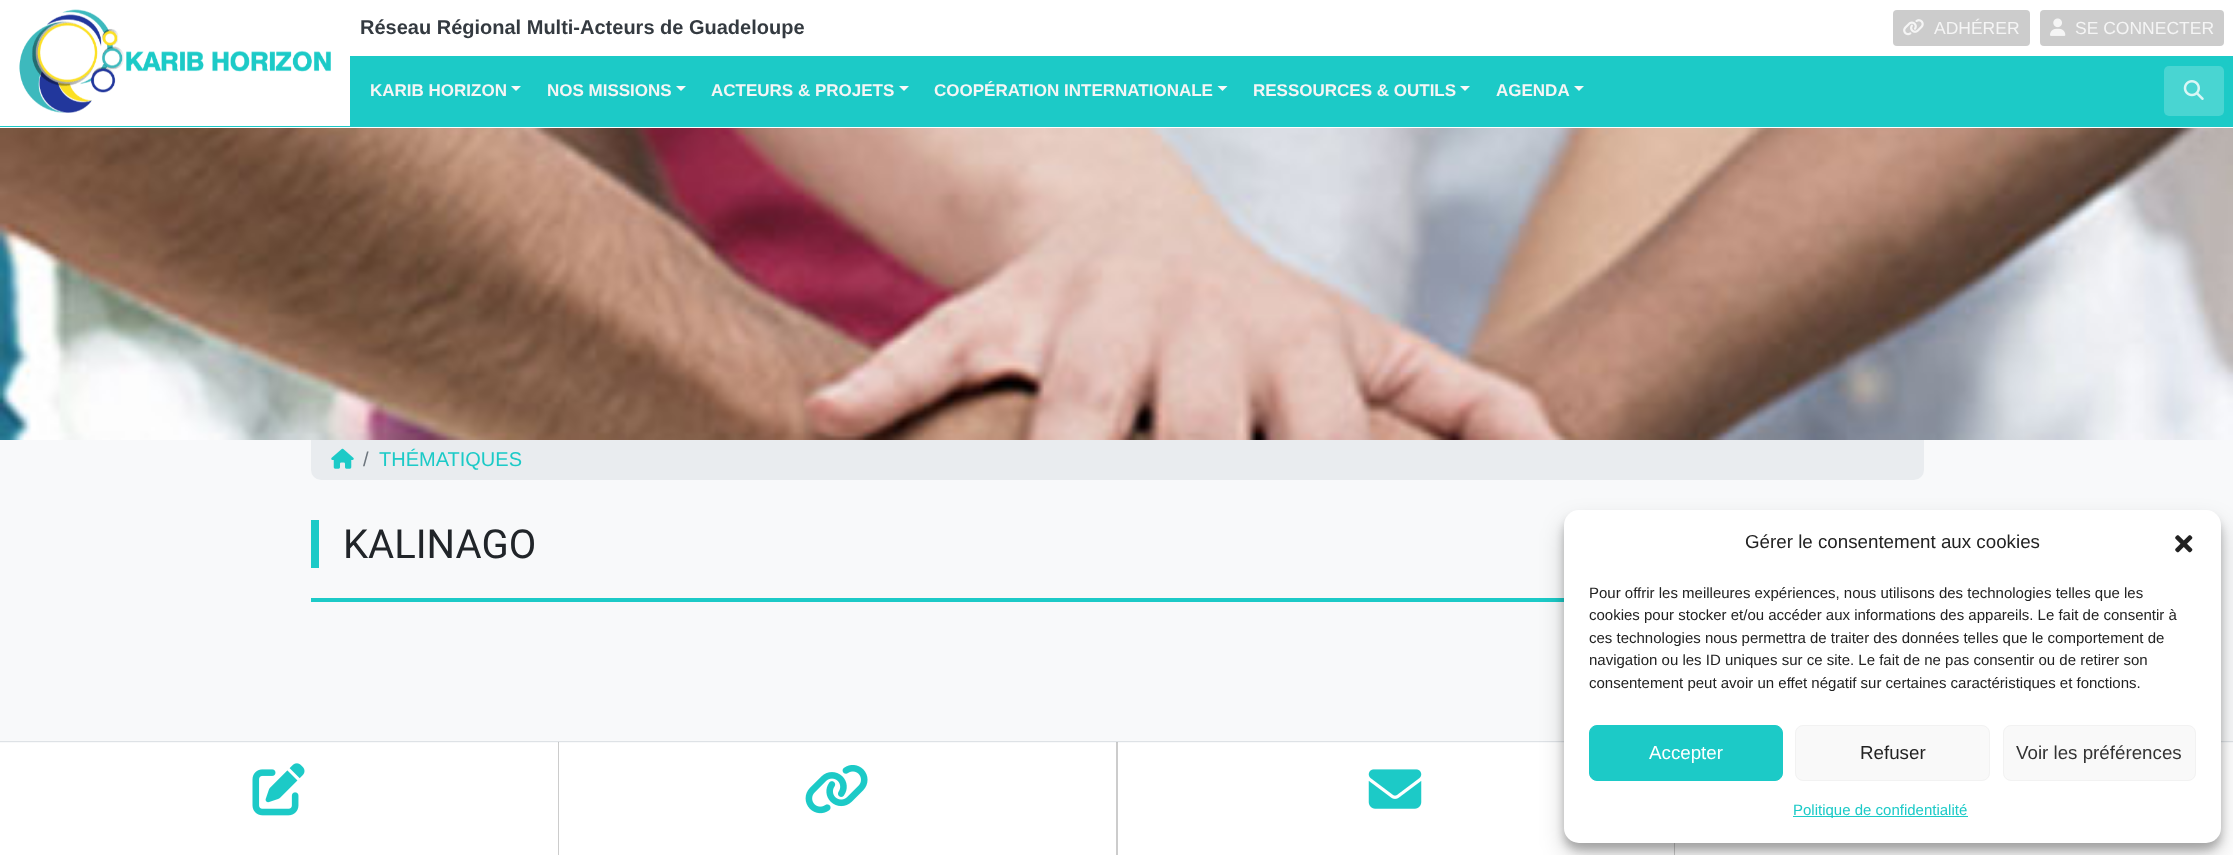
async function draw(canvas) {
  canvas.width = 2233;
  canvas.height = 855;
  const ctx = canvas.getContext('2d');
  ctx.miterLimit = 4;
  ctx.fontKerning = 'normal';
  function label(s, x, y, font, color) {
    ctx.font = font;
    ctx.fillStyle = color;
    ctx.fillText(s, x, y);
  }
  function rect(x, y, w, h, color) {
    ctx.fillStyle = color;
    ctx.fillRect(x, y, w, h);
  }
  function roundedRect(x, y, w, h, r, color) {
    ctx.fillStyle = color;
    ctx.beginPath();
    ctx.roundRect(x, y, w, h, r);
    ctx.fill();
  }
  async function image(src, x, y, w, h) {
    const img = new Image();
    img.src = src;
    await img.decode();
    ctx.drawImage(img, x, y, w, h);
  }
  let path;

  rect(0, 0, 2233, 855, '#fff');
  rect(0, 126, 2233, 1, '#1ccac7');
  await image('assets/img1.png', 19, 9, 312, 104);
  label('Réseau Régional Multi-Acteurs de Guadeloupe', 360, 34, 'bold 20px Liberation Sans', '#343a40');
  roundedRect(1893, 10, 137, 36, 4, '#ccc');
  await image('assets/img2.png', 1903, 19, 21, 17);
  label('ADHÉRER', 1934, 34, '17.5px Liberation Sans', '#f5f5f5');
  roundedRect(2040, 10, 184, 36, 4, '#ccc');
  await image('assets/img3.png', 2050, 18, 16, 18);
  label('SE CONNECTER', 2075, 34, '17.5px Liberation Sans', '#f5f5f5');
  rect(350, 56, 1883, 70, '#1ccac7');
  label('KARIB HORIZON', 370, 96, 'bold 17px Liberation Sans', '#f5f5f5');
  ctx.fillStyle = '#f8f9fa';
  path = new Path2D('M511 86H521L516 91Z');
  ctx.fill(path);
  label('NOS MISSIONS', 547, 96, 'bold 17px Liberation Sans', '#f5f5f5');
  ctx.fillStyle = '#f8f9fa';
  path = new Path2D('M676 86H686L681 91Z');
  ctx.fill(path);
  label('ACTEURS & PROJETS', 711, 96, 'bold 17px Liberation Sans', '#f5f5f5');
  ctx.fillStyle = '#f8f9fa';
  path = new Path2D('M899 86H909L904 91Z');
  ctx.fill(path);
  label('COOPÉRATION INTERNATIONALE', 934, 96, 'bold 17px Liberation Sans', '#f5f5f5');
  ctx.fillStyle = '#f8f9fa';
  path = new Path2D('M1217.5 86H1227.5L1222.5 91Z');
  ctx.fill(path);
  label('RESSOURCES & OUTILS', 1253, 96, 'bold 17px Liberation Sans', '#f5f5f5');
  ctx.fillStyle = '#f8f9fa';
  path = new Path2D('M1460 86H1470L1465 91Z');
  ctx.fill(path);
  label('AGENDA', 1496, 96, 'bold 17px Liberation Sans', '#f5f5f5');
  ctx.fillStyle = '#f8f9fa';
  path = new Path2D('M1574 86H1584L1579 91Z');
  ctx.fill(path);
  roundedRect(2164, 66, 60, 50, 5, '#49d5d2');
  await image('assets/img4.png', 2183, 80, 21, 20);
  await image('assets/img5.png', 0, 128, 2233, 312);
  rect(0, 440, 2233, 303, '#f8f9fa');
  rect(0, 741, 2233, 1, '#dee2e6');
  ctx.fillStyle = '#e9ecef';
  ctx.beginPath();
  ctx.roundRect(311, 440, 1613, 40, [0, 0, 10, 10]);
  ctx.fill();
  await image('assets/img6.png', 331, 448, 23, 21);
  label('/', 363, 466, '20px Liberation Sans', '#6c757d');
  label('THÉMATIQUES', 379, 466, '20px Liberation Sans', '#1ccac7');
  rect(311, 520, 8, 48, '#1ccac7');
  label('KALINAGO', 343, 558, '40px Roboto', '#212529');
  rect(311, 598, 1253, 4, '#1ccac7');
  ctx.fillStyle = '#00000033';
  path = new Path2D('M559 742V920L558 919V742Z');
  ctx.fill(path);
  await image('assets/img7.png', 252, 763, 53, 53);
  path = new Path2D('M1118 742V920L1116 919V742Z');
  ctx.fill(path);
  await image('assets/img8.png', 805, 765, 63, 49);
  path = new Path2D('M1675 742V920L1674 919V742Z');
  ctx.fill(path);
  await image('assets/img9.png', 1368, 769, 54, 40);
  ctx.fillStyle = '#0000003b';
  ctx.filter = 'blur(4px)';
  ctx.beginPath();
  ctx.roundRect(1564, 518, 657, 332, 15);
  ctx.fill();
  ctx.filter = 'none';
  ctx.fillStyle = '#00000030';
  ctx.filter = 'blur(12.5px)';
  ctx.beginPath();
  ctx.roundRect(1564, 523, 657, 332, 15);
  ctx.fill();
  ctx.filter = 'none';
  roundedRect(1564, 510, 657, 333, 15, '#fff');
  label('Gérer le consentement aux cookies', 1745, 548, '18.75px Liberation Sans', '#222');
  await image('assets/img10.png', 2175, 535, 18, 18);
  label('Pour offrir les meilleures expériences, nous utilisons des technologies telles que les', 1589, 598, '15px Liberation Sans', '#222');
  label('cookies pour stocker et/ou accéder aux informations des appareils. Le fait de consentir à', 1589, 620, '15px Liberation Sans', '#222');
  label('ces technologies nous permettra de traiter des données telles que le comportement de', 1589, 643, '15px Liberation Sans', '#222');
  label('navigation ou les ID uniques sur ce site. Le fait de ne pas consentir ou de retirer son', 1589, 665, '15px Liberation Sans', '#222');
  label('consentement peut avoir un effet négatif sur certaines caractéristiques et fonctions.', 1589, 688, '15px Liberation Sans', '#222');
  ctx.fillStyle = '#1ccac7';
  ctx.beginPath();
  ctx.roundRect(1589.5, 725.5, 193, 55, 7.5);
  ctx.fill();
  ctx.strokeStyle = '#1ccac7';
  ctx.stroke();
  label('Accepter', 1649, 759, '18.75px Liberation Sans', '#fff');
  ctx.fillStyle = '#f9f9f9';
  ctx.beginPath();
  ctx.roundRect(1795.5, 725.5, 194, 55, 7.5);
  ctx.fill();
  ctx.strokeStyle = '#f2f2f2';
  ctx.stroke();
  label('Refuser', 1860, 759, '18.75px Liberation Sans', '#222');
  ctx.fillStyle = '#f9f9f9';
  ctx.beginPath();
  ctx.roundRect(2003.5, 725.5, 192, 55, 7.5);
  ctx.fill();
  ctx.stroke();
  label('Voir les préférences', 2016, 759, '18.75px Liberation Sans', '#333');
  rect(1793, 816, 175, 1, '#1ccac7');
  label('Politique de confidentialité', 1793, 815, '15px Liberation Sans', '#1ccac7');
}

draw(document.querySelector('canvas'));
